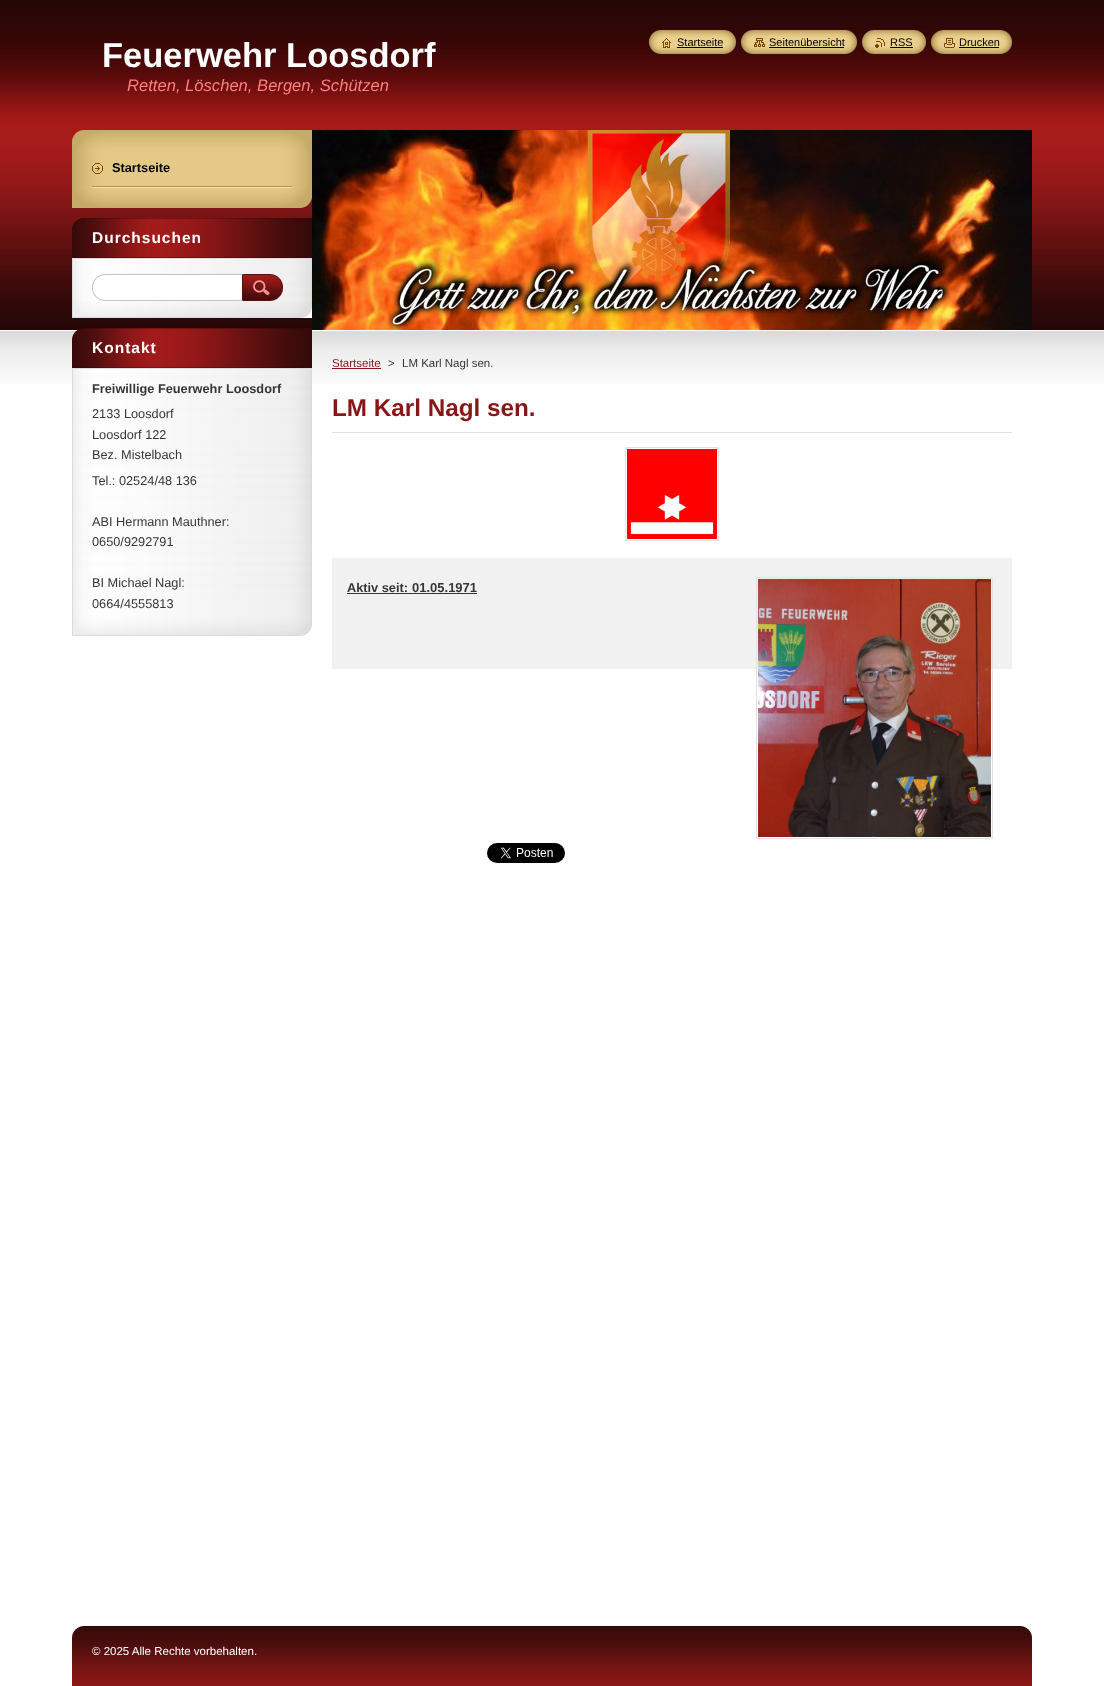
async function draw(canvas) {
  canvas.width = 1104;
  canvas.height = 1686;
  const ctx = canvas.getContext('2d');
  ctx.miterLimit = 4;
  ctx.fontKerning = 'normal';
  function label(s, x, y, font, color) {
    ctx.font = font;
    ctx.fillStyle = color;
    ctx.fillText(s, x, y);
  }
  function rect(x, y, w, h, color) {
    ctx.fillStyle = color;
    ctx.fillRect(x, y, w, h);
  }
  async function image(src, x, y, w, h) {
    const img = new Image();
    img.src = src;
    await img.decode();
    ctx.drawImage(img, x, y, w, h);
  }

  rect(0, 0, 1104, 1686, '#fff');
  await image('assets/img1.png', 0, 0, 1104, 384);
  label('Feuerwehr Loosdorf', 102, 67, 'bold 34.5px Liberation Sans', '#fff');
  label('Retten, Löschen, Bergen, Schützen', 127, 91, 'italic 16.6px Liberation Sans', '#ff7e7e');
  await image('assets/img2.png', 649, 30, 13, 24);
  await image('assets/img3.png', 662, 30, 74, 24);
  await image('assets/img4.png', 662, 38, 9, 10);
  label('Startseite', 677, 46, '11px Liberation Sans', '#000');
  rect(677, 47, 46, 1, '#000');
  await image('assets/img2.png', 741, 30, 13, 24);
  await image('assets/img5.png', 754, 30, 103, 24);
  await image('assets/img6.png', 754, 38, 11, 9);
  label('Seitenübersicht', 769, 46, '11px Liberation Sans', '#000');
  rect(769, 47, 75, 1, '#000');
  await image('assets/img2.png', 862, 30, 13, 24);
  await image('assets/img7.png', 875, 30, 51, 24);
  await image('assets/img8.png', 875, 38, 10, 10);
  label('RSS', 890, 46, '11px Liberation Sans', '#000');
  rect(890, 47, 23, 1, '#000');
  await image('assets/img9.png', 931, 30, 14, 24);
  await image('assets/img10.png', 945, 30, 67, 24);
  await image('assets/img11.png', 944, 38, 11, 10);
  label('Drucken', 959, 46, '11px Liberation Sans', '#000');
  rect(959, 47, 40, 1, '#000');
  await image('assets/img12.png', 72, 130, 240, 20);
  await image('assets/img13.png', 72, 188, 240, 20);
  await image('assets/img14.png', 72, 150, 240, 38);
  await image('assets/img15.png', 92, 186, 200, 2);
  await image('assets/img16.png', 92, 163, 11, 11);
  label('Startseite', 112, 172, 'bold 12.75px Liberation Sans', '#000');
  await image('assets/img17.png', 72, 301, 240, 17);
  await image('assets/img18.png', 72, 218, 240, 40);
  ctx.letterSpacing = '1px';
  label('Durchsuchen', 92, 243, 'bold 15.5px Liberation Sans', '#fff');
  await image('assets/img19.png', 72, 259, 240, 42);
  rect(72, 258, 240, 1, '#dbdbdb');
  await image('assets/img20.png', 92, 274, 150, 27);
  await image('assets/img21.png', 242, 274, 41, 27);
  await image('assets/img17.png', 72, 619, 240, 17);
  await image('assets/img22.png', 72, 328, 240, 40);
  label('Kontakt', 92, 353, 'bold 15.5px Liberation Sans', '#fff');
  await image('assets/img23.png', 72, 369, 240, 250);
  rect(72, 368, 240, 1, '#dbdbdb');
  ctx.letterSpacing = '0px';
  label('Freiwillige Feuerwehr Loosdorf', 92, 393, 'bold 12.75px Liberation Sans', '#363636');
  label('2133 Loosdorf', 92, 418, '12.75px Liberation Sans', '#363636');
  label('Loosdorf 122', 92, 439, '12.75px Liberation Sans', '#363636');
  label('Bez. Mistelbach', 92, 459, '12.75px Liberation Sans', '#363636');
  label('Tel.: 02524/48 136', 92, 485, '12.75px Liberation Sans', '#363636');
  label('ABI Hermann Mauthner:', 92, 526, '12.75px Liberation Sans', '#363636');
  label('0650/9292791', 92, 546, '12.75px Liberation Sans', '#363636');
  label('BI Michael Nagl:', 92, 587, '12.75px Liberation Sans', '#363636');
  label('0664/4555813', 92, 608, '12.75px Liberation Sans', '#363636');
  await image('assets/img24.png', 312, 130, 720, 200);
  label('Startseite', 332, 367, '11.5px Liberation Sans', '#871616');
  rect(332, 368, 49, 1, '#871616');
  label('>', 388, 367, '11.5px Liberation Sans', '#363636');
  label('LM Karl Nagl sen.', 402, 367, '11.5px Liberation Sans', '#363636');
  rect(332, 432, 680, 1, '#e1e1e1');
  label('LM Karl Nagl sen.', 332, 416, 'bold 24.25px Liberation Sans', '#871616');
  ctx.strokeStyle = '#e0e2e6';
  ctx.strokeRect(625.5, 447.5, 93, 93);
  await image('assets/img25.png', 627, 449, 90, 90);
  rect(332, 558, 680, 111, '#f1f1f1');
  label('Aktiv seit:', 347, 592, 'bold 12.75px Liberation Sans', '#363636');
  rect(347, 593, 130, 1, '#363636');
  label('01.05.1971', 412, 592, 'bold 13px Liberation Sans', '#363636');
  ctx.strokeRect(756.5, 577.5, 236, 261);
  await image('assets/img26.png', 758, 579, 233, 258);
  await image('assets/img27.png', 487, 843, 78, 20);
  await image('assets/img28.png', 72, 1626, 960, 60);
  label('© 2025 Alle Rechte vorbehalten.', 92, 1655, '11.5px Liberation Sans', '#fff');
}

draw(document.querySelector('canvas'));
